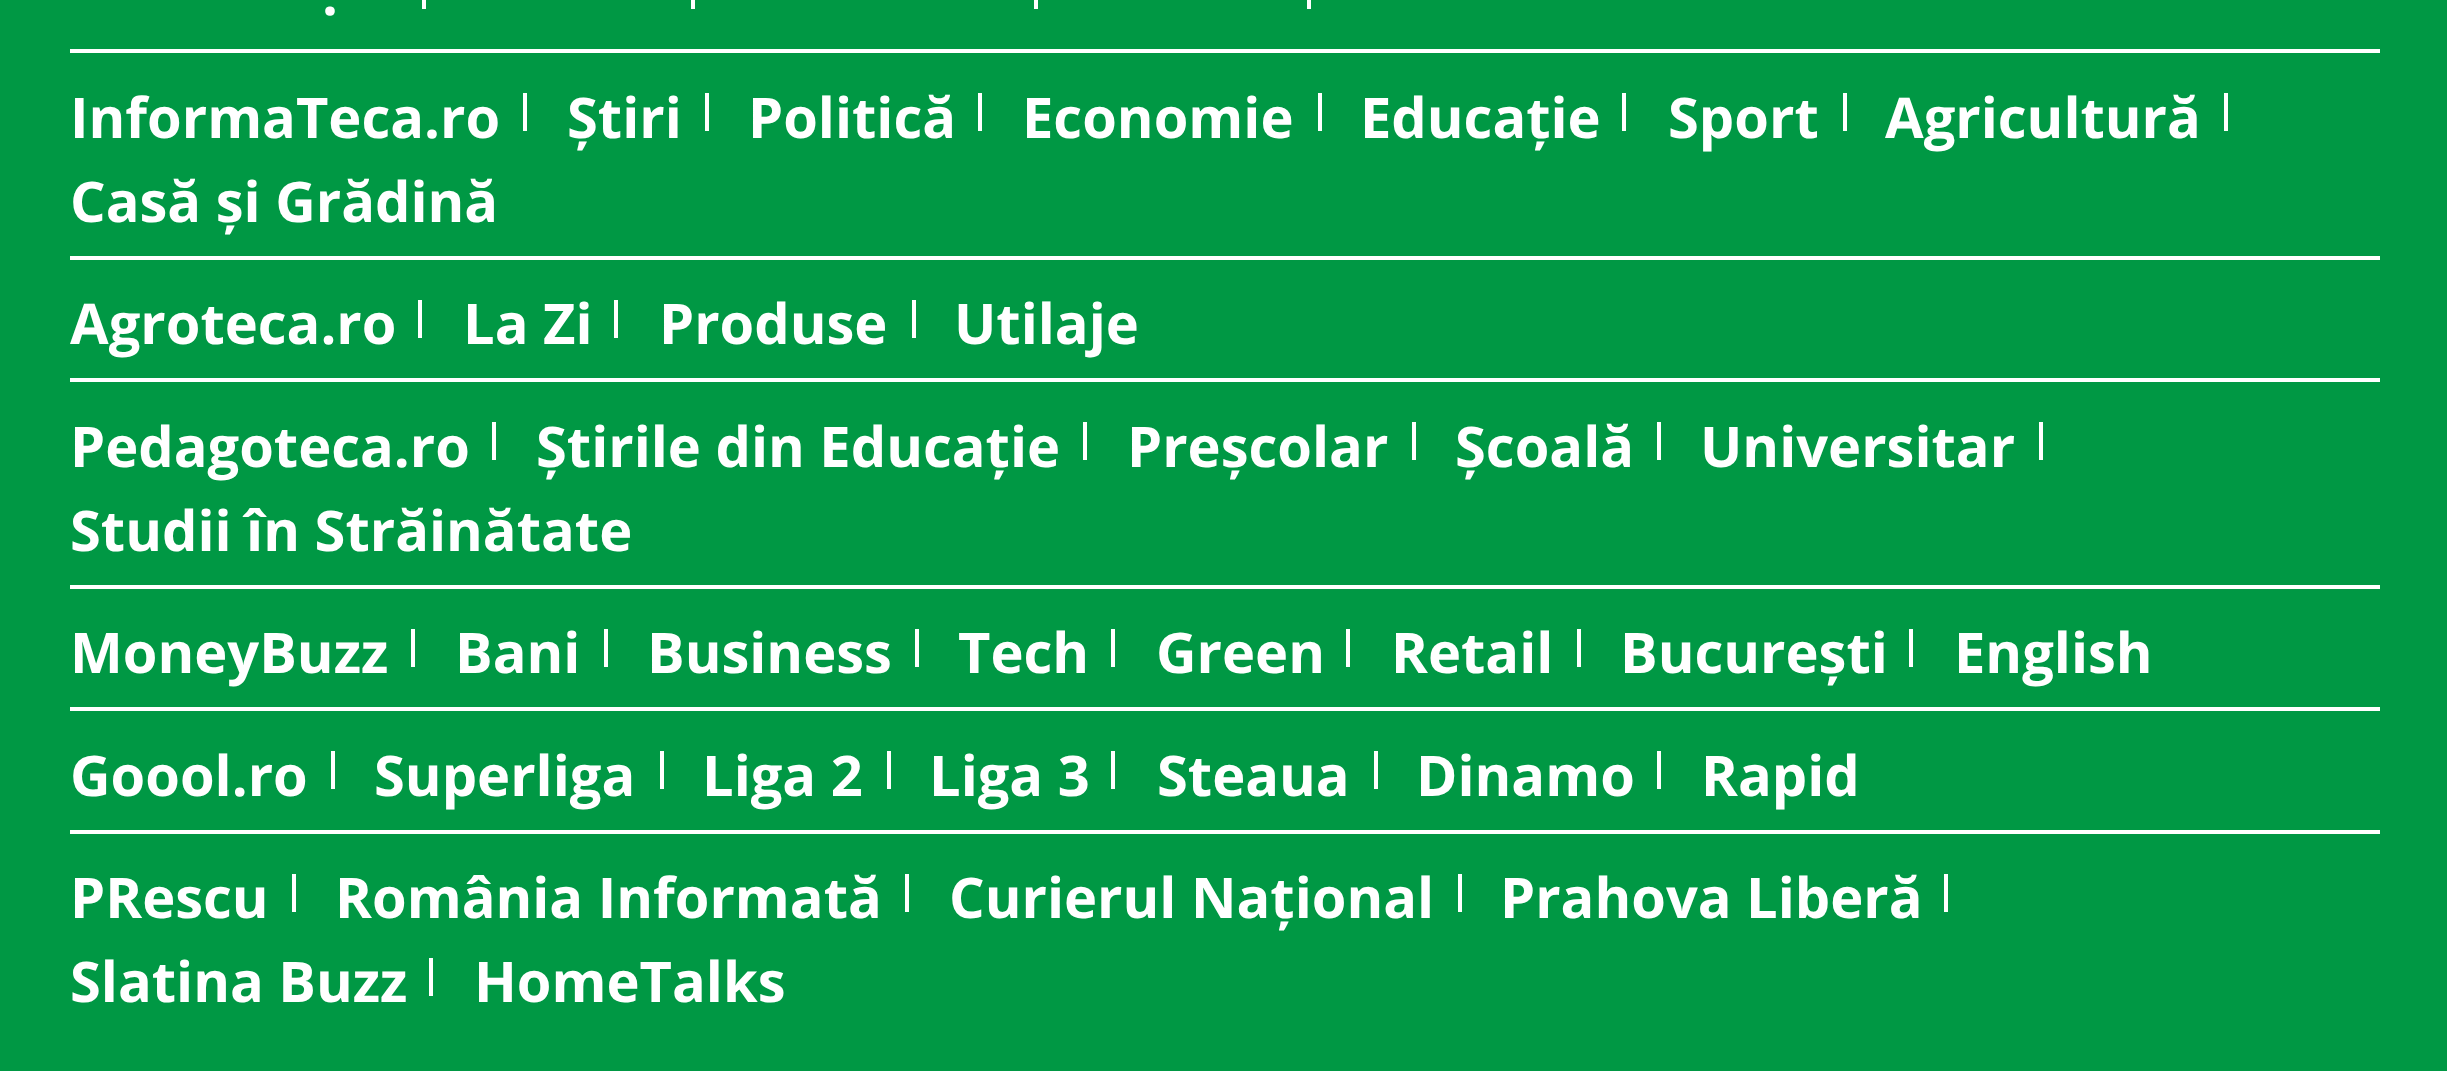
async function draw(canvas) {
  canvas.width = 2447;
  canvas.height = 1071;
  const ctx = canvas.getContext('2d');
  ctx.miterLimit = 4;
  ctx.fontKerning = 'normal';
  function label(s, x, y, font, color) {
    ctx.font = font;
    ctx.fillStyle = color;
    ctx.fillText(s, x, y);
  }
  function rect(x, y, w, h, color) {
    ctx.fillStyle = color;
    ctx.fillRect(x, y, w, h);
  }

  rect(0, 0, 2447, 1071, '#009844');
  rect(70, 49, 2310, 4, '#fff');
  rect(691, 0, 4, 9, '#fff');
  rect(1034, 0, 4, 9, '#fff');
  rect(1307, 0, 4, 9, '#fff');
  rect(422, 0, 4, 9, '#fff');
  label('.', 322, 15, 'bold 56px Open Sans', '#fff');
  rect(70, 256, 2310, 4, '#fff');
  label('InformaTeca.ro', 70, 138, 'bold 56px Open Sans', '#fff');
  rect(523, 93, 4, 38, '#fff');
  label('Știri', 567, 138, 'bold 56px Open Sans', '#fff');
  rect(705, 93, 4, 38, '#fff');
  label('Politică', 748, 138, 'bold 56px Open Sans', '#fff');
  rect(978, 93, 4, 38, '#fff');
  label('Economie', 1022, 138, 'bold 56px Open Sans', '#fff');
  rect(1318, 93, 4, 38, '#fff');
  label('Educație', 1360, 138, 'bold 56px Open Sans', '#fff');
  rect(1622, 93, 4, 38, '#fff');
  label('Sport', 1668, 138, 'bold 56px Open Sans', '#fff');
  rect(1843, 93, 4, 38, '#fff');
  label('Agricultură', 1885, 138, 'bold 56px Open Sans', '#fff');
  rect(2224, 93, 4, 38, '#fff');
  label('Casă și Grădină', 70, 222, 'bold 56px Open Sans', '#fff');
  rect(70, 378, 2310, 4, '#fff');
  label('Agroteca.ro', 70, 344, 'bold 56px Open Sans', '#fff');
  rect(418, 300, 4, 38, '#fff');
  label('La Zi', 463, 344, 'bold 56px Open Sans', '#fff');
  rect(614, 300, 4, 38, '#fff');
  label('Produse', 659, 344, 'bold 56px Open Sans', '#fff');
  rect(912, 300, 4, 38, '#fff');
  label('Utilaje', 954, 344, 'bold 56px Open Sans', '#fff');
  rect(70, 585, 2310, 4, '#fff');
  label('Pedagoteca.ro', 70, 467, 'bold 56px Open Sans', '#fff');
  rect(492, 422, 4, 38, '#fff');
  label('Știrile din Educație', 536, 467, 'bold 56px Open Sans', '#fff');
  rect(1083, 422, 4, 38, '#fff');
  label('Preșcolar', 1127, 467, 'bold 56px Open Sans', '#fff');
  rect(1412, 422, 4, 38, '#fff');
  label('Școală', 1455, 467, 'bold 56px Open Sans', '#fff');
  rect(1657, 422, 4, 38, '#fff');
  label('Universitar', 1700, 467, 'bold 56px Open Sans', '#fff');
  rect(2039, 422, 4, 38, '#fff');
  label('Studii în Străinătate', 70, 551, 'bold 56px Open Sans', '#fff');
  rect(70, 707, 2310, 4, '#fff');
  label('MoneyBuzz', 70, 673, 'bold 56px Open Sans', '#fff');
  rect(411, 629, 4, 38, '#fff');
  label('Bani', 455, 673, 'bold 56px Open Sans', '#fff');
  rect(604, 629, 4, 38, '#fff');
  label('Business', 647, 673, 'bold 56px Open Sans', '#fff');
  rect(915, 629, 4, 38, '#fff');
  label('Tech', 958, 673, 'bold 56px Open Sans', '#fff');
  rect(1111, 629, 4, 38, '#fff');
  label('Green', 1156, 673, 'bold 56px Open Sans', '#fff');
  rect(1346, 629, 4, 38, '#fff');
  label('Retail', 1391, 673, 'bold 56px Open Sans', '#fff');
  rect(1577, 629, 4, 38, '#fff');
  label('București', 1620, 673, 'bold 56px Open Sans', '#fff');
  rect(1909, 629, 4, 38, '#fff');
  label('English', 1954, 673, 'bold 56px Open Sans', '#fff');
  rect(70, 830, 2310, 4, '#fff');
  label('Goool.ro', 70, 796, 'bold 56px Open Sans', '#fff');
  rect(331, 751, 4, 38, '#fff');
  label('Superliga', 374, 796, 'bold 56px Open Sans', '#fff');
  rect(660, 751, 4, 38, '#fff');
  label('Liga 2', 702, 796, 'bold 56px Open Sans', '#fff');
  rect(887, 751, 4, 38, '#fff');
  label('Liga 3', 929, 796, 'bold 56px Open Sans', '#fff');
  rect(1111, 751, 4, 38, '#fff');
  label('Steaua', 1157, 796, 'bold 56px Open Sans', '#fff');
  rect(1374, 751, 4, 38, '#fff');
  label('Dinamo', 1416, 796, 'bold 56px Open Sans', '#fff');
  rect(1657, 751, 4, 38, '#fff');
  label('Rapid', 1701, 796, 'bold 56px Open Sans', '#fff');
  label('PRescu', 70, 918, 'bold 56px Open Sans', '#fff');
  rect(292, 874, 4, 38, '#fff');
  label('România Informată', 335, 918, 'bold 56px Open Sans', '#fff');
  rect(905, 874, 4, 38, '#fff');
  label('Curierul Național', 949, 918, 'bold 56px Open Sans', '#fff');
  rect(1458, 874, 4, 38, '#fff');
  label('Prahova Liberă', 1500, 918, 'bold 56px Open Sans', '#fff');
  rect(1944, 874, 4, 38, '#fff');
  label('Slatina Buzz', 70, 1002, 'bold 56px Open Sans', '#fff');
  rect(429, 958, 4, 38, '#fff');
  label('HomeTalks', 474, 1002, 'bold 56px Open Sans', '#fff');
}

draw(document.querySelector('canvas'));
